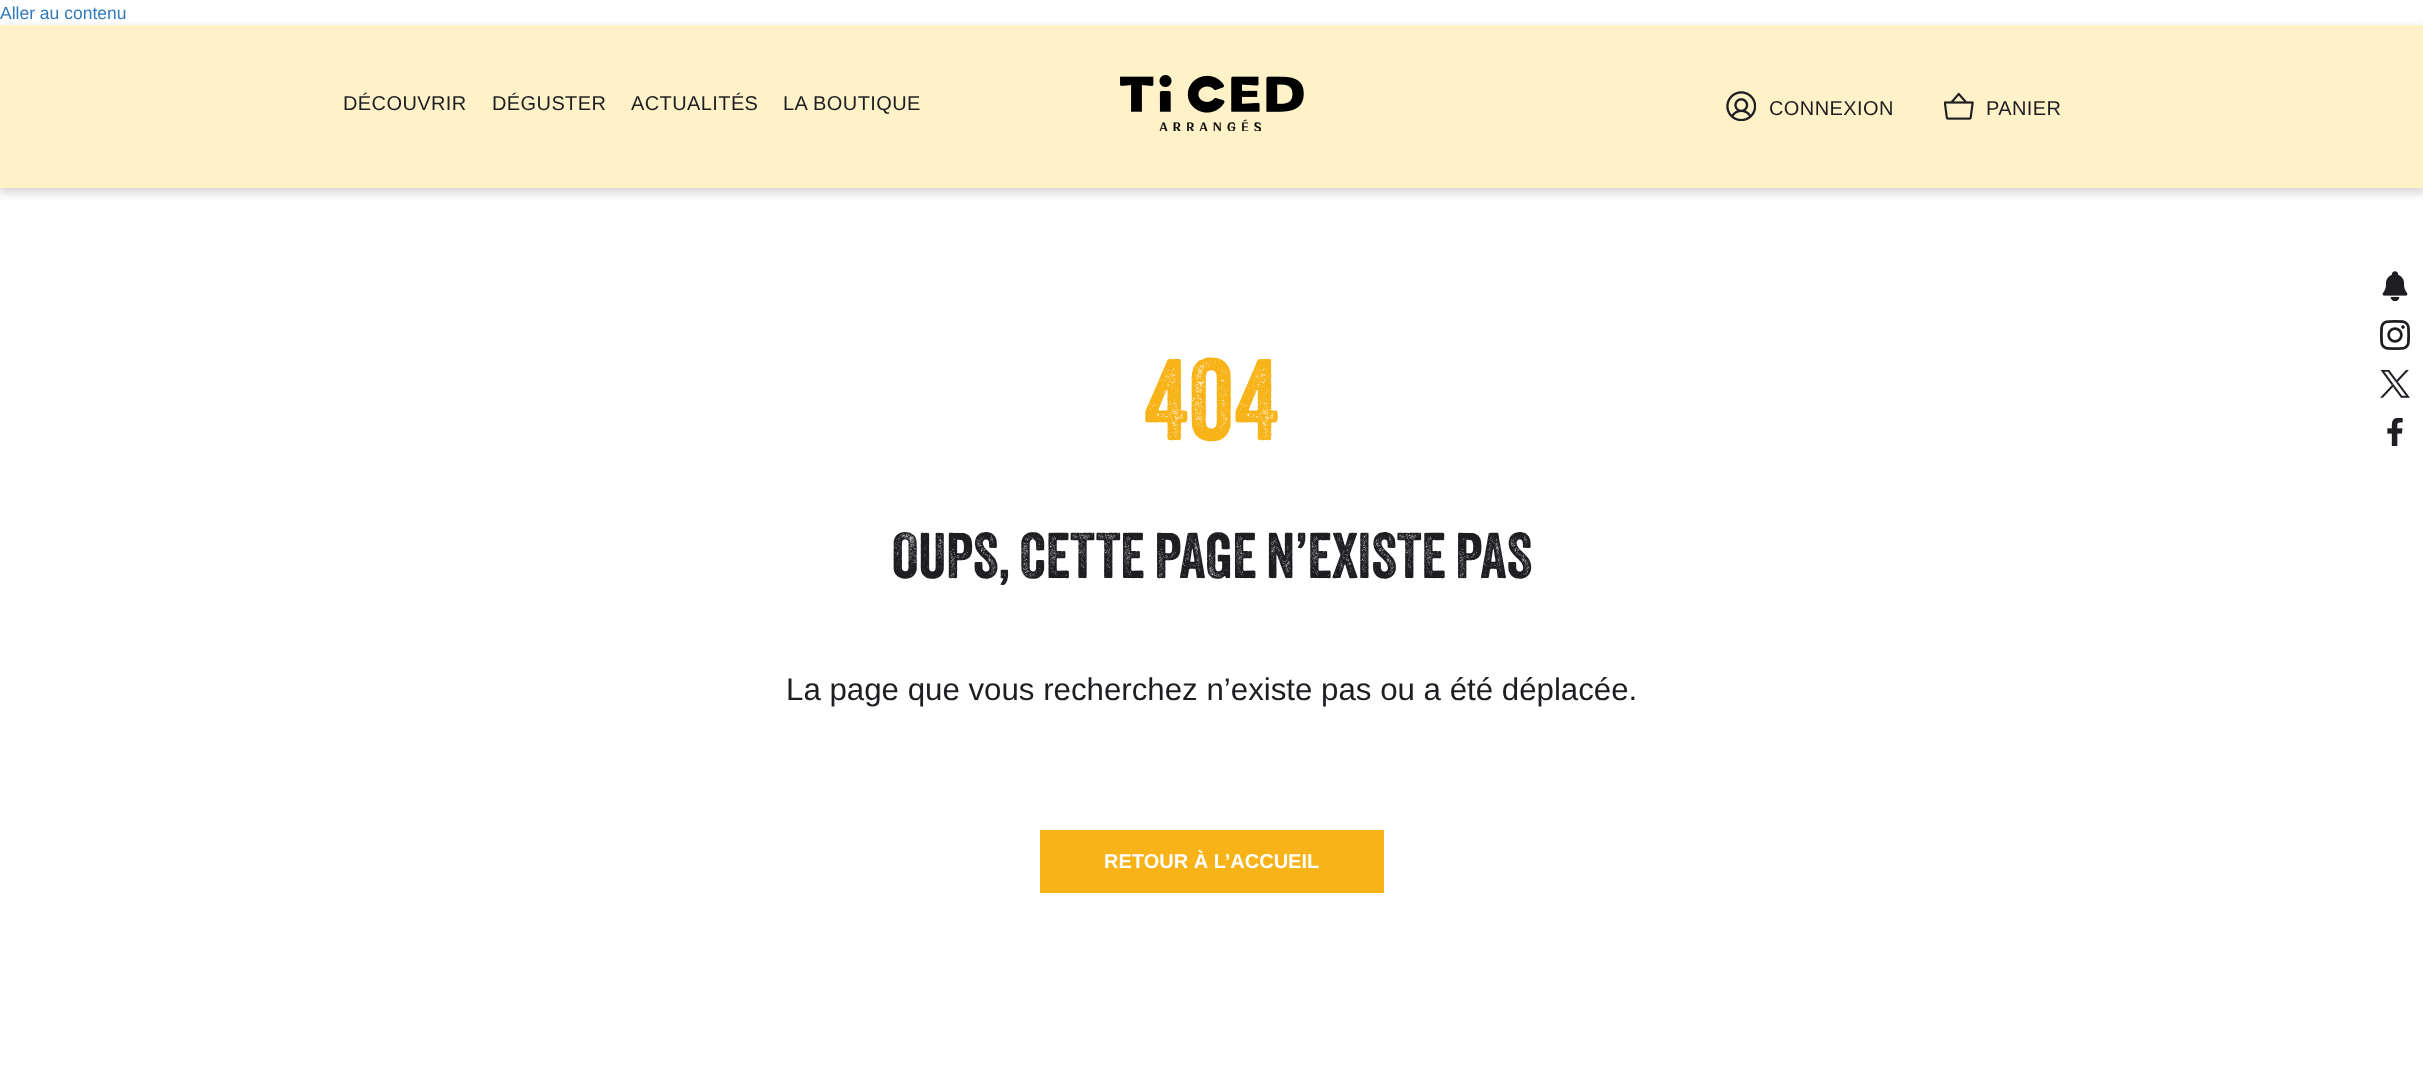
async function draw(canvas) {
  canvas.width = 2423;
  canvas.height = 1070;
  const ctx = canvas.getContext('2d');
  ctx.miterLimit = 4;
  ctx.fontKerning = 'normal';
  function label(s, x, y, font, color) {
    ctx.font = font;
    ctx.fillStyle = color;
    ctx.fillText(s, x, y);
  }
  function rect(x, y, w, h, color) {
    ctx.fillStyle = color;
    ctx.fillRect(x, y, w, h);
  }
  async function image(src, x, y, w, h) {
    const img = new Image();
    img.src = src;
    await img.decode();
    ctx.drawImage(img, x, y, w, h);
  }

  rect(0, 0, 2423, 1070, '#fff');
  label('Aller au contenu', 0, 19, '17.5px Liberation Sans', '#337ab7');
  ctx.fillStyle = '#00000029';
  ctx.filter = 'blur(4px)';
  ctx.beginPath();
  ctx.rect(-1, 28, 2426, 165);
  ctx.fill();
  ctx.filter = 'none';
  rect(0, 25, 2423, 163, '#fff2c9');
  ctx.letterSpacing = '0.4px';
  label('DÉCOUVRIR', 343, 110, '20px Liberation Sans', '#1d1d22');
  label('DÉGUSTER', 492, 110, '20px Liberation Sans', '#1d1d22');
  label('ACTUALITÉS', 631, 110, '20px Liberation Sans', '#1d1d22');
  label('LA BOUTIQUE', 783, 110, '20px Liberation Sans', '#1d1d22');
  await image('assets/img1.png', 1120, 75, 184, 56);
  await image('assets/img2.png', 1726, 91, 30, 30);
  label('CONNEXION', 1769, 115, '20px Liberation Sans', '#1d1d22');
  await image('assets/img3.png', 1944, 92, 30, 28);
  label('PANIER', 1986, 115, '20px Liberation Sans', '#1d1d22');
  ctx.letterSpacing = '0px';
  label('404', 1144, 440, '112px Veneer', '#f7b318');
  label('OUPS, CETTE PAGE N’EXISTE PAS', 892, 578, '62.5px Veneer', '#1d1d22');
  label('La page que vous recherchez n’existe pas ou a été déplacée.', 786, 700, '31.25px Liberation Sans', '#1d1d22');
  rect(1040, 830, 344, 63, '#f7b318');
  label('RETOUR À L’ACCUEIL', 1104, 868, 'bold 20px Liberation Sans', '#fff');
  await image('assets/img4.png', 2382, 271, 26, 30);
  await image('assets/img5.png', 2380, 320, 30, 30);
  await image('assets/img6.png', 2380, 370, 30, 28);
  await image('assets/img7.png', 2387, 418, 16, 28);
}

draw(document.querySelector('canvas'));
